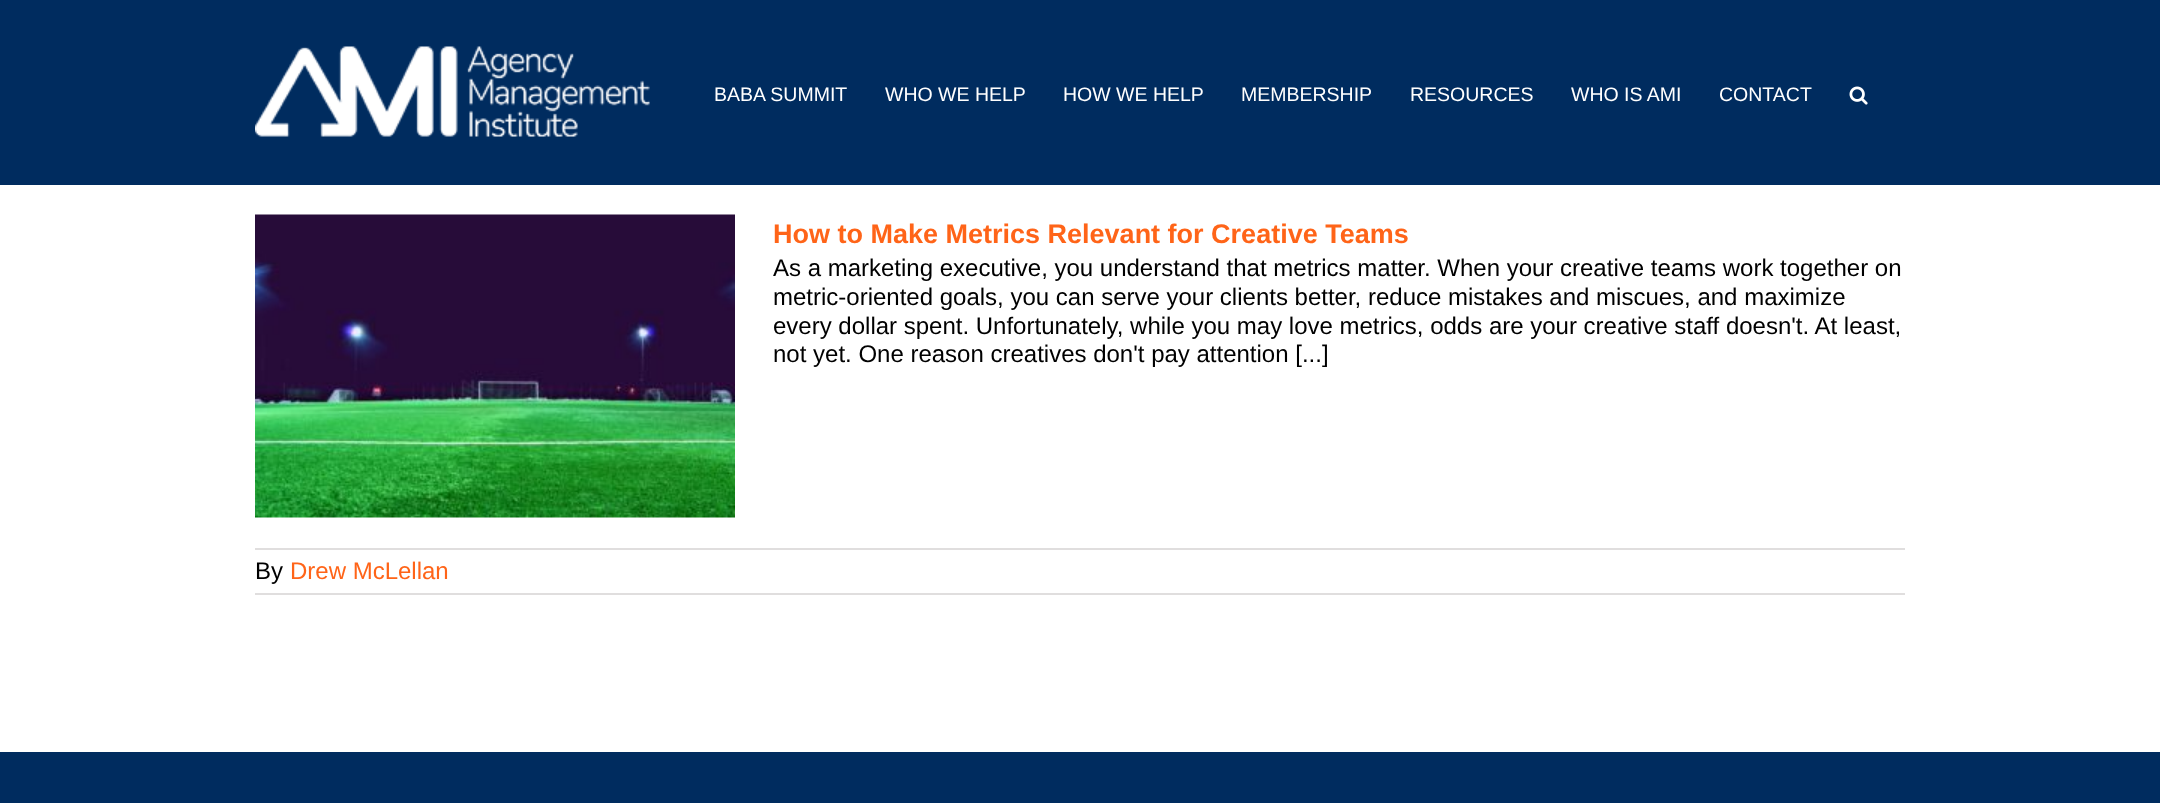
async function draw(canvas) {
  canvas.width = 2160;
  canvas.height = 803;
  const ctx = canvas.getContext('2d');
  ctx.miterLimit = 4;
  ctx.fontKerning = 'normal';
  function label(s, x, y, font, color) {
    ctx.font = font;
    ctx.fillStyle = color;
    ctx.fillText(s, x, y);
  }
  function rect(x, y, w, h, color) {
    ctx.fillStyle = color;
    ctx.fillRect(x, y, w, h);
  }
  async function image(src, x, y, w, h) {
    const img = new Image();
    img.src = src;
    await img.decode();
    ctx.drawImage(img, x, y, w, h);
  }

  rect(0, 0, 2160, 803, '#fff');
  rect(0, 0, 2160, 185, '#002c5f');
  await image('assets/img1.png', 255, 46, 395, 91);
  label('BABA SUMMIT', 714, 101, '19.5px Liberation Sans', '#fff');
  label('WHO WE HELP', 885, 101, '19.5px Liberation Sans', '#fff');
  label('HOW WE HELP', 1063, 101, '19.5px Liberation Sans', '#fff');
  label('MEMBERSHIP', 1241, 101, '19.5px Liberation Sans', '#fff');
  label('RESOURCES', 1410, 101, '19.5px Liberation Sans', '#fff');
  label('WHO IS AMI', 1571, 101, '19.5px Liberation Sans', '#fff');
  label('CONTACT', 1719, 101, '19.5px Liberation Sans', '#fff');
  await image('assets/img2.png', 1849, 86, 19, 19);
  await image('assets/img3.png', 255, 214, 480, 304);
  label('How to Make Metrics Relevant for Creative Teams', 773, 243, 'bold 27px Liberation Sans', '#ff6418');
  label('As a marketing executive, you understand that metrics matter. When your creative teams work together on', 773, 276, '24px Liberation Sans', '#000');
  label('metric-oriented goals, you can serve your clients better, reduce mistakes and miscues, and maximize', 773, 305, '24px Liberation Sans', '#000');
  label('every dollar spent. Unfortunately, while you may love metrics, odds are your creative staff doesn\'t. At least,', 773, 334, '24px Liberation Sans', '#000');
  label('not yet. One reason creatives don\'t pay attention [...]', 773, 362, '24px Liberation Sans', '#000');
  rect(255, 548, 1650, 2, '#e0dede');
  rect(255, 593, 1650, 2, '#e0dede');
  label('By', 255, 579, '24px Liberation Sans', '#000');
  label('Drew McLellan', 290, 579, '24px Liberation Sans', '#ff6418');
  rect(0, 752, 2160, 51, '#002c5f');
}

draw(document.querySelector('canvas'));
